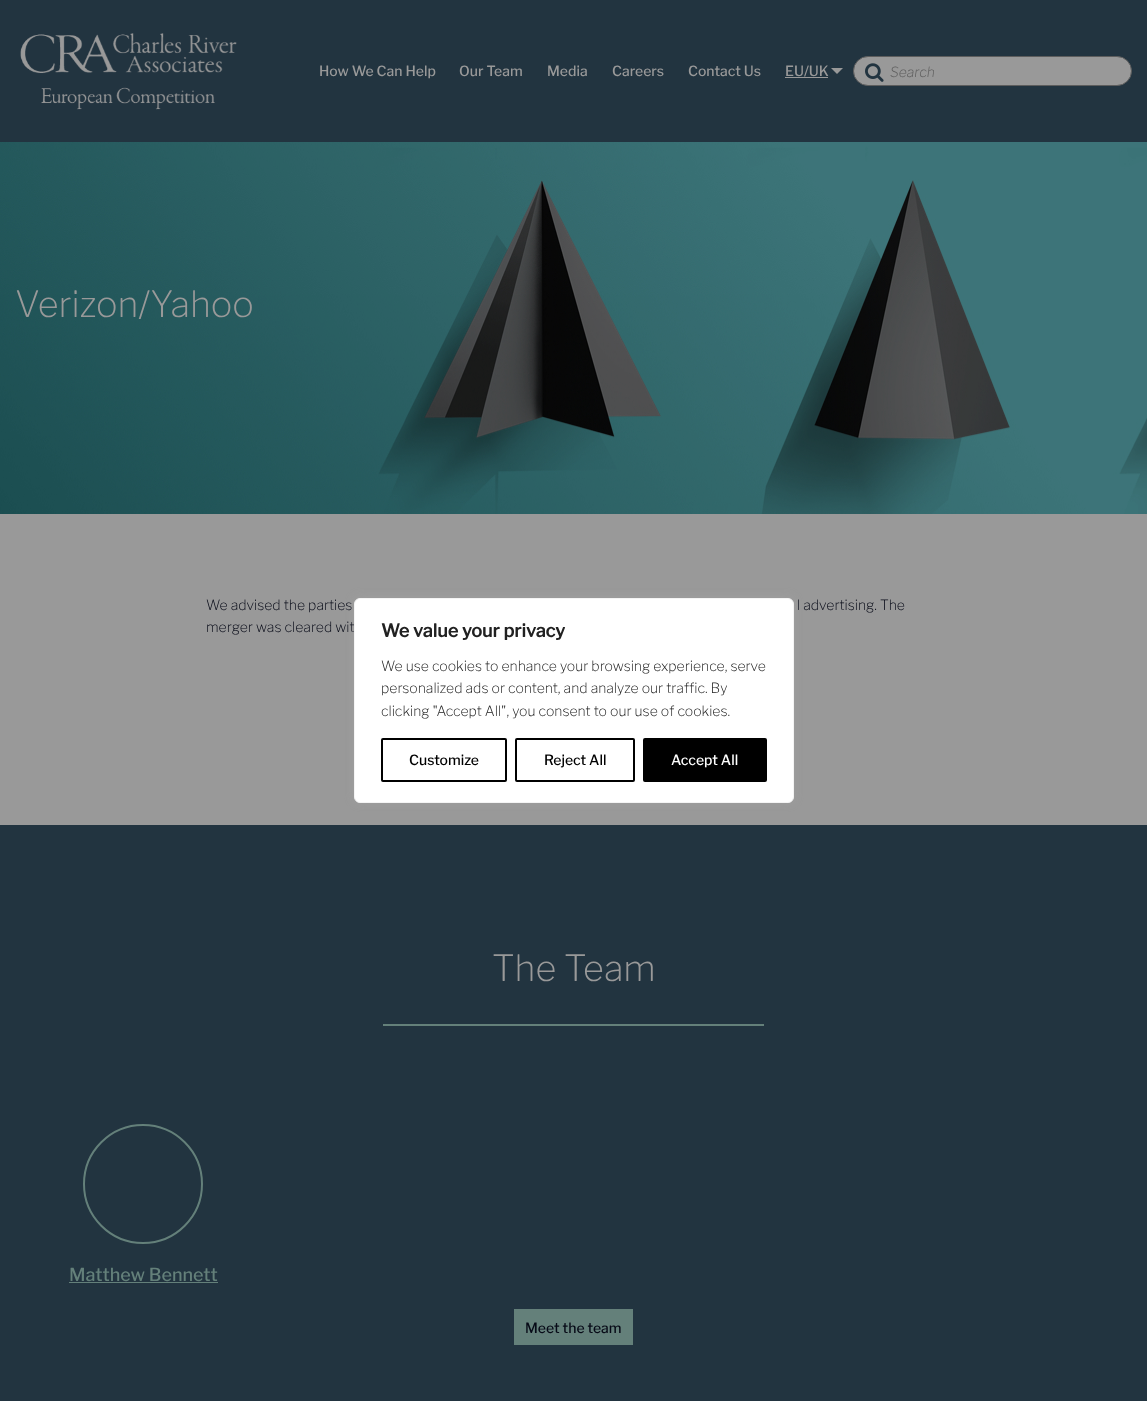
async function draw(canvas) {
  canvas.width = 1147;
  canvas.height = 1401;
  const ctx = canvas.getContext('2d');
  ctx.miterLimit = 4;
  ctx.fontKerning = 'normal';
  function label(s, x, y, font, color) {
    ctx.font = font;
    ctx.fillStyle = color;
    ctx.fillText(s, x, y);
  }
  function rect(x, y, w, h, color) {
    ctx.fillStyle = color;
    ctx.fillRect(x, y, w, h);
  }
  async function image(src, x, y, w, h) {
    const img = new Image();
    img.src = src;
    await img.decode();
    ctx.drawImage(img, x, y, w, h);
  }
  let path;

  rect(0, 0, 1147, 1401, '#999');
  rect(0, 0, 1147, 142, '#223440');
  await image('assets/img1.png', 20, 33, 217, 77);
  label('How We Can Help', 319, 76, '500 14px Libre Franklin', '#999');
  label('Our Team', 459, 76, '500 14px Libre Franklin', '#999');
  label('Media', 547, 76, '500 14px Libre Franklin', '#999');
  label('Careers', 612, 76, '500 14px Libre Franklin', '#999');
  label('Contact Us', 688, 76, '500 14px Libre Franklin', '#999');
  label('EU/UK', 785, 76, '500 14px Libre Franklin', '#999');
  rect(785, 77, 43, 1, '#999');
  path = new Path2D('M831 68H843L837 74Z');
  ctx.fill(path);
  ctx.beginPath();
  ctx.roundRect(853.5, 56.5, 278, 29, 14.5);
  ctx.fill();
  ctx.strokeStyle = '#5d5d5d';
  ctx.stroke();
  await image('assets/img2.png', 865, 63, 19, 19);
  label('Search', 890, 77, 'italic 100 14px Libre Franklin', '#5d5d5d');
  await image('assets/img3.png', 0, 142, 1147, 372);
  label('Verizon/Yahoo', 15, 317, '200 36px Libre Franklin', '#999');
  label('We advised the parties', 206, 610, '200 14px Libre Franklin', '#070a17');
  label('l advertising. The', 797, 610, '200 14px Libre Franklin', '#070a17');
  label('merger was cleared wit', 206, 632, '200 14px Libre Franklin', '#070a17');
  rect(0, 825, 1147, 576, '#223440');
  label('The Team', 492, 981, '200 36px Libre Franklin', '#999');
  rect(383, 1024, 381, 2, '#64807a');
  ctx.beginPath();
  ctx.arc(143, 1184, 59, 0, 2 * Math.PI);
  ctx.strokeStyle = '#64807a';
  ctx.lineWidth = 2;
  ctx.stroke();
  label('Matthew Bennett', 69, 1281, '500 18px Libre Franklin', '#64807a');
  rect(69, 1282, 149, 1, '#64807a');
  rect(514, 1309, 119, 36, '#64807a');
  label('Meet the team', 525, 1333, '500 14px Libre Franklin', '#070a17');
  ctx.fillStyle = '#acabab4d';
  ctx.filter = 'blur(5px)';
  ctx.beginPath();
  ctx.roundRect(354, 597, 440, 205, 6);
  ctx.fill();
  ctx.filter = 'none';
  ctx.fillStyle = '#fff';
  ctx.beginPath();
  ctx.roundRect(354.5, 598.5, 439, 204, 5.5);
  ctx.fill();
  ctx.strokeStyle = '#f4f4f4';
  ctx.lineWidth = 1;
  ctx.stroke();
  label('We value your privacy', 381, 637, 'bold 18px Libre Franklin', '#212121');
  label('We use cookies to enhance your browsing experience, serve', 381, 671, '200 14px Libre Franklin', '#212121');
  label('personalized ads or content, and analyze our traffic. By', 381, 693, '200 14px Libre Franklin', '#212121');
  label('clicking "Accept All", you consent to our use of cookies.', 381, 716, '200 14px Libre Franklin', '#212121');
  ctx.beginPath();
  ctx.roundRect(382, 739, 124, 42, 1);
  ctx.strokeStyle = '#000';
  ctx.lineWidth = 2;
  ctx.stroke();
  label('Customize', 409, 765, '500 14px Libre Franklin', '#000');
  ctx.beginPath();
  ctx.roundRect(516, 739, 118, 42, 1);
  ctx.stroke();
  label('Reject All', 544, 765, '500 14px Libre Franklin', '#000');
  ctx.beginPath();
  ctx.roundRect(644, 739, 122, 42, 1);
  ctx.fill();
  ctx.stroke();
  label('Accept All', 671, 765, '500 14px Libre Franklin', '#fff');
}

draw(document.querySelector('canvas'));
